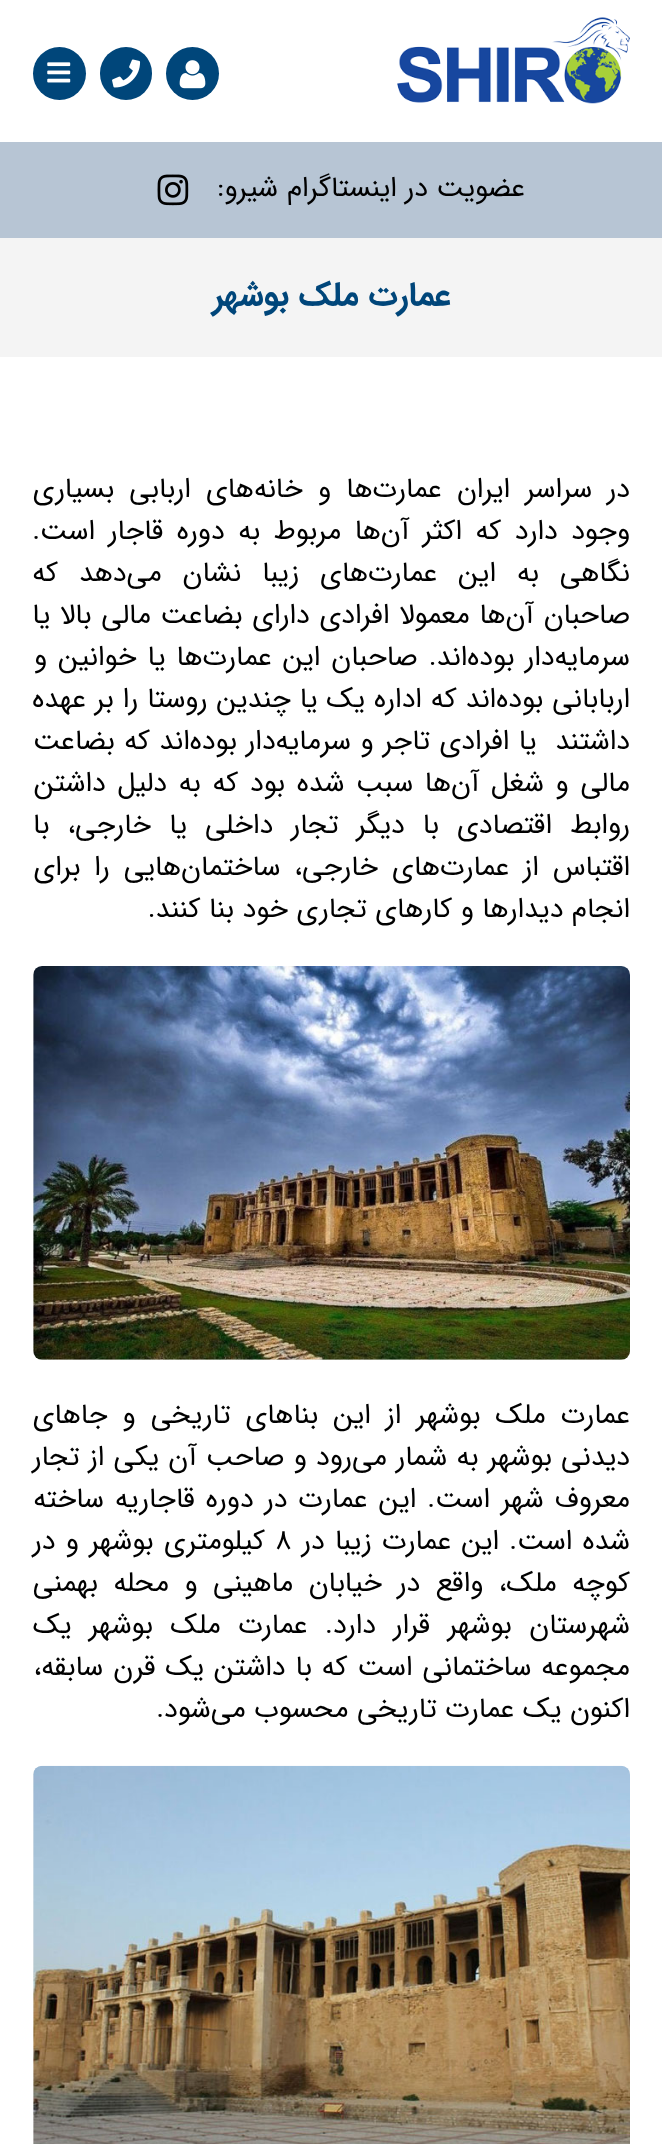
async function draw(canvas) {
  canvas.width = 662;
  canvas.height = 2144;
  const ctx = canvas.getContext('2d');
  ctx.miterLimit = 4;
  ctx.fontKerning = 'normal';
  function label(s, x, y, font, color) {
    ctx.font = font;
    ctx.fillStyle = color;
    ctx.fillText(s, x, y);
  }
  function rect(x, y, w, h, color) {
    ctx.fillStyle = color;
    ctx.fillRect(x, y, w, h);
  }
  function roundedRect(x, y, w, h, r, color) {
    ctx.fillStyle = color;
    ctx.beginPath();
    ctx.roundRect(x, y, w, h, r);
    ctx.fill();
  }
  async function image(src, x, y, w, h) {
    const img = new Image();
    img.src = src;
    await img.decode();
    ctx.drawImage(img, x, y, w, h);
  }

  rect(0, 0, 662, 2144, '#fff');
  await image('assets/img1.png', 397, 17, 233, 87);
  ctx.fillStyle = '#00467a';
  ctx.beginPath();
  ctx.arc(192.5, 73.5, 26.5, 0, 2 * Math.PI);
  ctx.fill();
  await image('assets/img2.png', 179, 60, 27, 29);
  roundedRect(100, 47, 52, 53, 26, '#00467a');
  await image('assets/img3.png', 112, 59, 29, 29);
  ctx.beginPath();
  ctx.arc(59.5, 73.5, 26.5, 0, 2 * Math.PI);
  ctx.fill();
  await image('assets/img4.png', 47, 62, 24, 21);
  rect(0, 142, 662, 96, '#b7c5d4');
  ctx.direction = 'rtl';
  label('عضویت در اینستاگرام', 525, 196, '28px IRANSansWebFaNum', '#000');
  label('شیرو:', 278, 196, '28px IRANSansWebFaNum', '#000');
  await image('assets/img5.png', 157, 174, 32, 32);
  rect(0, 238, 662, 119, '#f4f4f4');
  label('عمارت ملک بوشهر', 451, 305, 'bold 33.25px IRANSansWebFaNum', '#00467a');
  ctx.wordSpacing = '6.75px';
  label('در سراسر ایران عمارت‌ها و خانه‌های اربابی بسیاری', 630, 497, '28px IRANSansWebFaNum', '#000');
  ctx.wordSpacing = '5px';
  label('وجود دارد که اکثر آن‌ها مربوط به دوره قاجار است.', 630, 539, '28px IRANSansWebFaNum', '#000');
  ctx.wordSpacing = '12.5px';
  label('نگاهی به این عمارت‌های زیبا نشان می‌دهد که', 630, 581, '28px IRANSansWebFaNum', '#000');
  ctx.wordSpacing = '1.25px';
  label('صاحبان آن‌ها معمولا افرادی دارای بضاعت مالی بالا یا', 630, 623, '28px IRANSansWebFaNum', '#000');
  ctx.wordSpacing = '2.5px';
  label('سرمایه‌دار بوده‌اند. صاحبان این عمارت‌ها یا خوانین و', 630, 665, '28px IRANSansWebFaNum', '#000');
  ctx.wordSpacing = '0.5px';
  label('اربابانی بوده‌اند که اداره یک یا چندین روستا را بر عهده', 630, 707, '28px IRANSansWebFaNum', '#000');
  ctx.wordSpacing = '0.9px';
  label('داشتند  یا افرادی تاجر و سرمایه‌دار بوده‌اند که بضاعت', 630, 749, '28px IRANSansWebFaNum', '#000');
  ctx.wordSpacing = '3.25px';
  label('مالی و شغل آن‌ها سبب شده بود که به دلیل داشتن', 630, 791, '28px IRANSansWebFaNum', '#000');
  ctx.wordSpacing = '9.5px';
  label('روابط اقتصادی با دیگر تجار داخلی یا خارجی، با', 630, 833, '28px IRANSansWebFaNum', '#000');
  ctx.wordSpacing = '5.5px';
  label('اقتباس از عمارت‌های خارجی، ساختمان‌هایی را برای', 630, 875, '28px IRANSansWebFaNum', '#000');
  ctx.wordSpacing = '0px';
  label('انجام دیدارها و کارهای تجاری خود بنا کنند.', 630, 917, '28px IRANSansWebFaNum', '#000');
  roundedRect(33, 966, 597, 394, 9, '#eee');
  await image('assets/img6.png', 33, 966, 597, 394);
  ctx.wordSpacing = '6.5px';
  label('عمارت ملک بوشهر از این بناهای تاریخی و جاهای', 630, 1423, '28px IRANSansWebFaNum', '#000');
  ctx.wordSpacing = '0.75px';
  label('دیدنی بوشهر به شمار می‌رود و صاحب آن یکی از تجار', 630, 1465, '28px IRANSansWebFaNum', '#000');
  ctx.wordSpacing = '2.5px';
  label('معروف شهر است. این عمارت در دوره قاجاریه ساخته', 630, 1507, '28px IRANSansWebFaNum', '#000');
  ctx.wordSpacing = '1.75px';
  label('شده است. این عمارت زیبا در', 630, 1549, '28px IRANSansWebFaNum', '#000');
  ctx.wordSpacing = '0px';
  ctx.direction = 'ltr';
  label('۸', 275, 1549, '28px IRANSansWebFaNum', '#000');
  ctx.wordSpacing = '2px';
  ctx.direction = 'rtl';
  label('کیلومتری بوشهر و در', 265, 1549, '28px IRANSansWebFaNum', '#000');
  ctx.wordSpacing = '7px';
  label('کوچه ملک، واقع در خیابان ماهینی و محله بهمنی', 630, 1591, '28px IRANSansWebFaNum', '#000');
  ctx.wordSpacing = '9px';
  label('شهرستان بوشهر قرار دارد. عمارت ملک بوشهر یک', 630, 1633, '28px IRANSansWebFaNum', '#000');
  ctx.wordSpacing = '1.5px';
  label('مجموعه ساختمانی است که با داشتن یک قرن سابقه،', 630, 1675, '28px IRANSansWebFaNum', '#000');
  ctx.wordSpacing = '0px';
  label('اکنون یک عمارت تاریخی محسوب می‌شود.', 630, 1717, '28px IRANSansWebFaNum', '#000');
  roundedRect(33, 1766, 597, 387, 9, '#eee');
  await image('assets/img7.png', 33, 1765, 597, 379);
}

draw(document.querySelector('canvas'));
